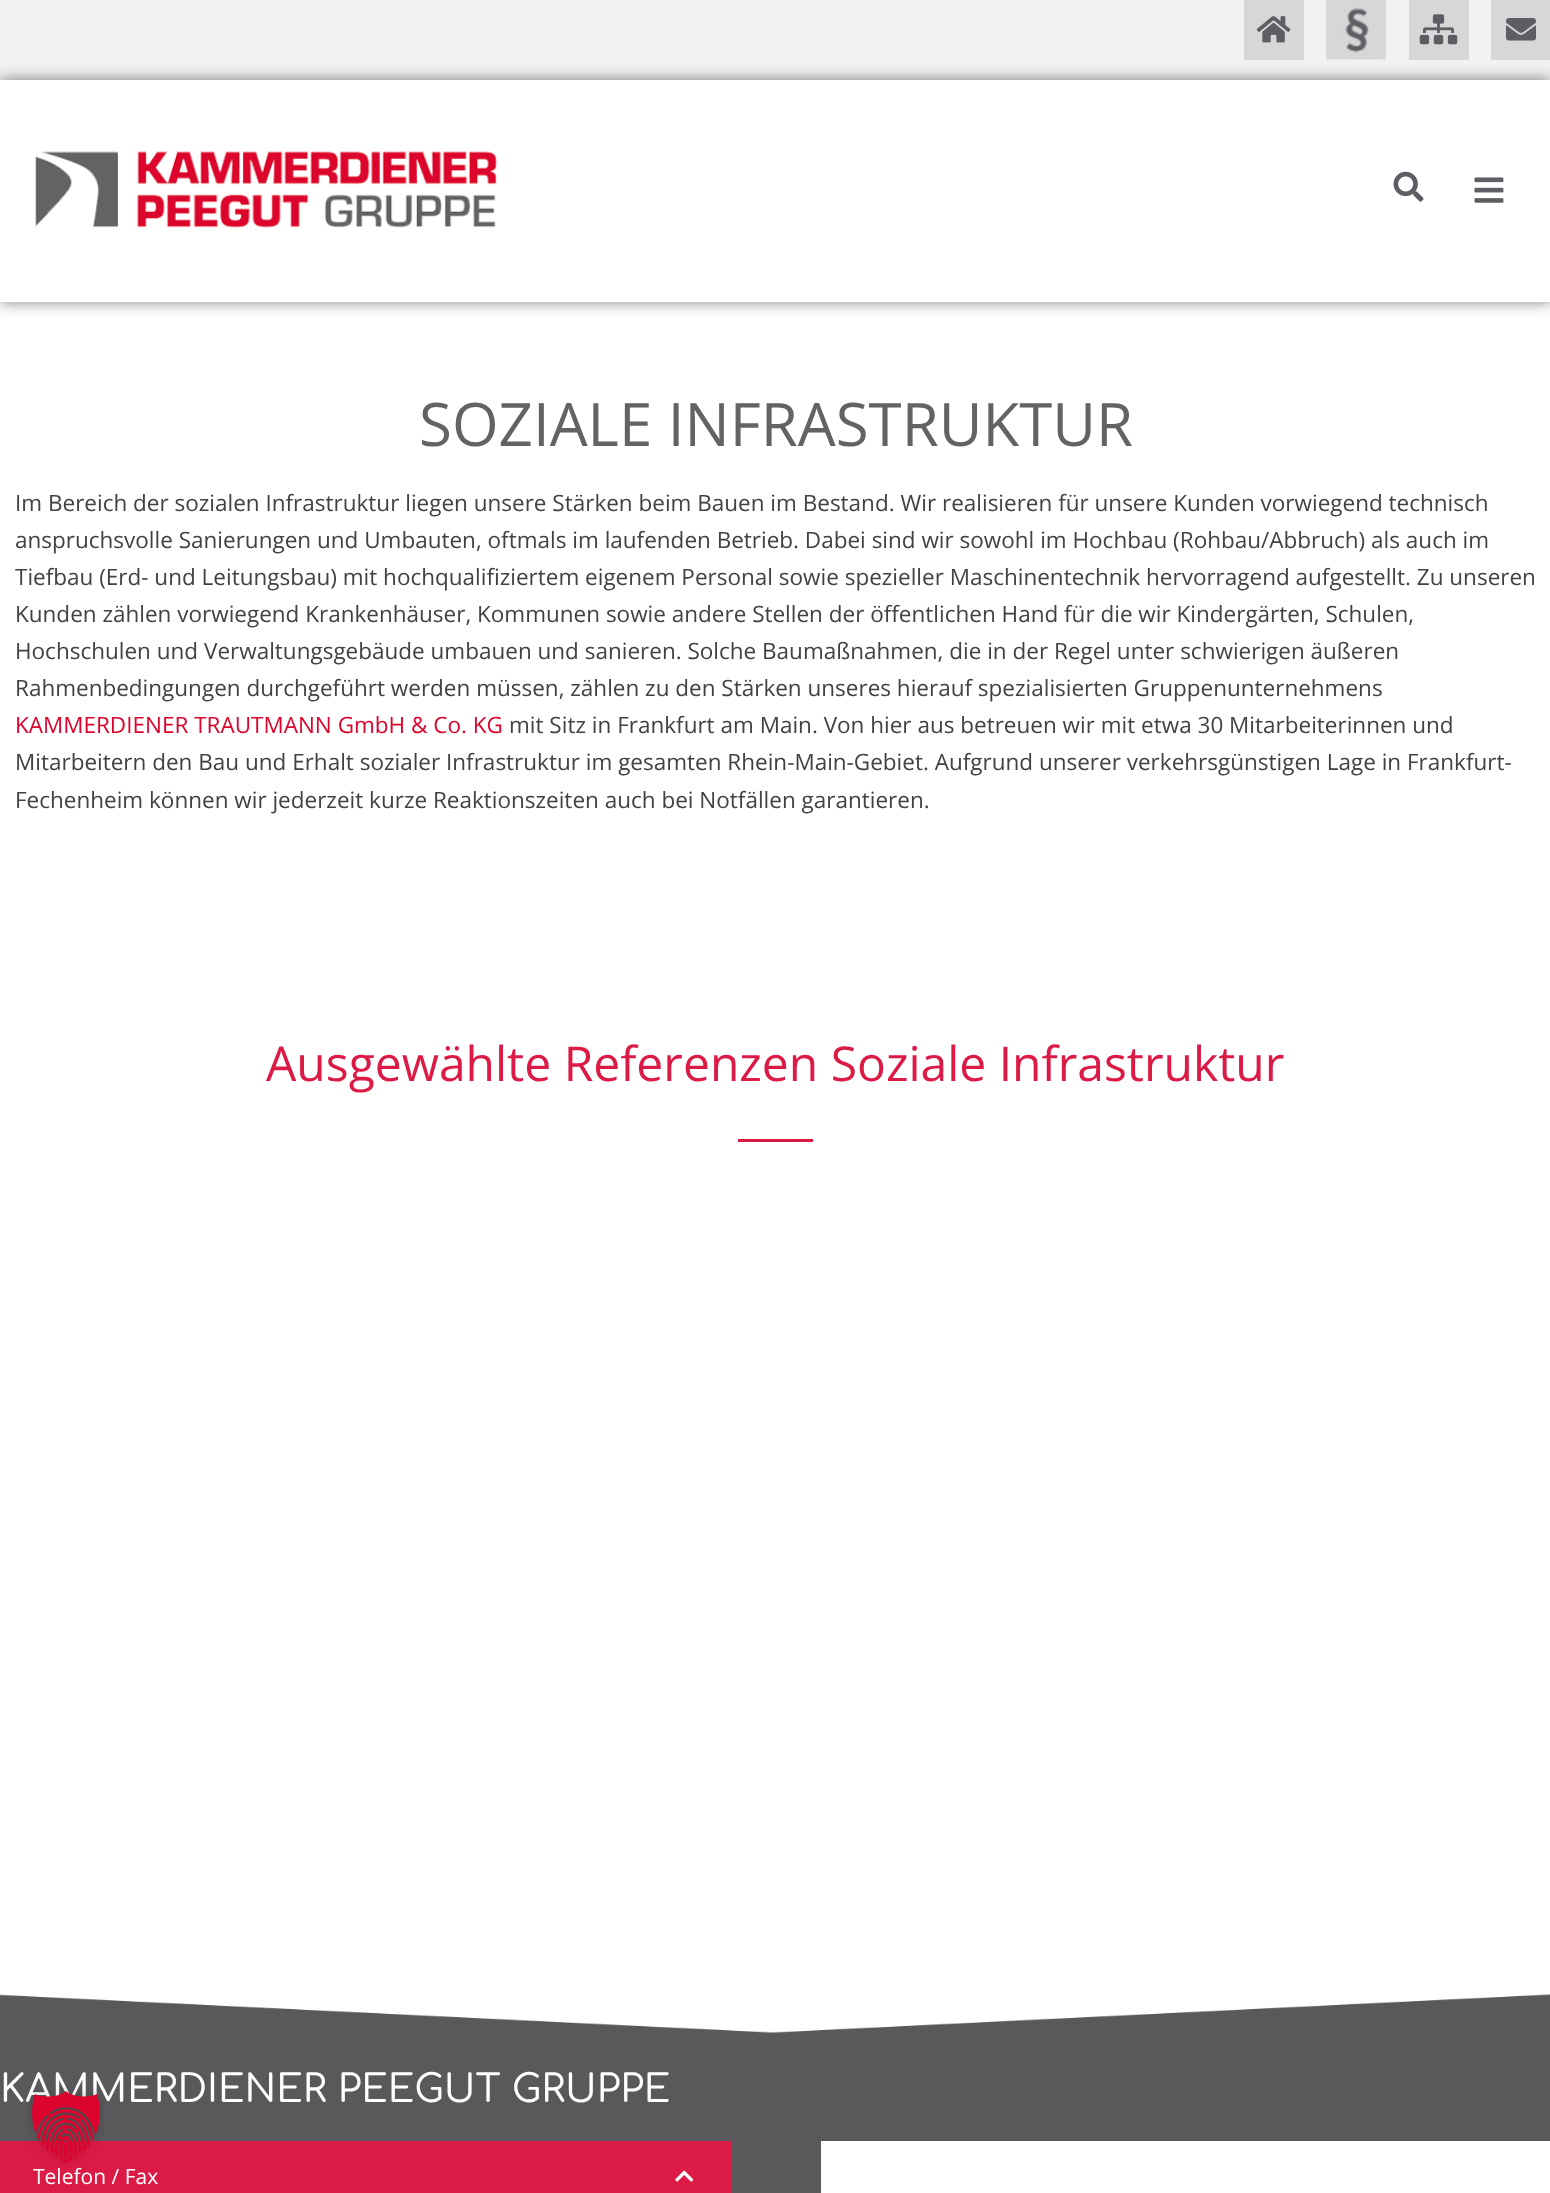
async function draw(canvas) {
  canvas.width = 1550;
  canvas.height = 2193;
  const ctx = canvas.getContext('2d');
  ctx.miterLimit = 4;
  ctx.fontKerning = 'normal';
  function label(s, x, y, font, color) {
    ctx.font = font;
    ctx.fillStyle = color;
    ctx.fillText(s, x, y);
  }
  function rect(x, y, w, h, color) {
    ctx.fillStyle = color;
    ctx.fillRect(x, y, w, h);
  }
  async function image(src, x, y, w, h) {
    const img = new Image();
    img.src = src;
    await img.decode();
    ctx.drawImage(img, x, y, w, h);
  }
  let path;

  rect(0, 0, 1550, 2193, '#fff');
  rect(0, 0, 1550, 80, '#f2f2f2');
  rect(1244, 0, 60, 60, '#d7d7d7');
  await image('assets/img1.png', 1256, 16, 35, 27);
  await image('assets/img2.png', 1326, 0, 60, 60);
  rect(1409, 0, 60, 60, '#d7d7d7');
  await image('assets/img3.png', 1419, 14, 39, 31);
  rect(1491, 0, 59, 60, '#d7d7d7');
  await image('assets/img4.png', 1506, 18, 30, 23);
  ctx.save();
  path = new Path2D('M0 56H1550V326H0ZM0 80H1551V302H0Z');
  ctx.clip(path, 'evenodd');
  ctx.fillStyle = '#00000080';
  ctx.filter = 'blur(7.5px)';
  ctx.beginPath();
  ctx.rect(0, 80, 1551, 222);
  ctx.fill();
  ctx.filter = 'none';
  ctx.restore();
  rect(0, 301, 1550, 1, '#fffffff0');
  await image('assets/img5.png', 35, 151, 462, 77);
  await image('assets/img6.png', 1393, 171, 31, 31);
  await image('assets/img7.png', 1474, 177, 30, 26);
  label('SOZIALE INFRASTRUKTUR', 419, 446, '60px Open Sans', '#626365');
  label('Im Bereich der sozialen Infrastruktur liegen unsere Stärken beim Bauen im Bestand. Wir realisieren für unsere Kunden vorwiegend technisch', 15, 511, '22.5px Open Sans', '#424242');
  label('anspruchsvolle Sanierungen und Umbauten, oftmals im laufenden Betrieb. Dabei sind wir sowohl im Hochbau (Rohbau/Abbruch) als auch im', 15, 548, '22.5px Open Sans', '#424242');
  label('Tiefbau (Erd- und Leitungsbau) mit hochqualifiziertem eigenem Personal sowie spezieller Maschinentechnik hervorragend aufgestellt. Zu unseren', 15, 585, '22.5px Open Sans', '#424242');
  label('Kunden zählen vorwiegend Krankenhäuser, Kommunen sowie andere Stellen der öffentlichen Hand für die wir Kindergärten, Schulen,', 15, 622, '22.5px Open Sans', '#424242');
  label('Hochschulen und Verwaltungsgebäude umbauen und sanieren. Solche Baumaßnahmen, die in der Regel unter schwierigen äußeren', 15, 659, '22.5px Open Sans', '#424242');
  label('Rahmenbedingungen durchgeführt werden müssen, zählen zu den Stärken unseres hierauf spezialisierten Gruppenunternehmens', 15, 696, '22.5px Open Sans', '#424242');
  label('KAMMERDIENER TRAUTMANN GmbH & Co. KG', 15, 733, '22.5px Open Sans', '#dc042d');
  label('mit Sitz in Frankfurt am Main. Von hier aus betreuen wir mit etwa 30 Mitarbeiterinnen und', 509, 733, '22.5px Open Sans', '#424242');
  label('Mitarbeitern den Bau und Erhalt sozialer Infrastruktur im gesamten Rhein-Main-Gebiet. Aufgrund unserer verkehrsgünstigen Lage in Frankfurt-', 15, 770, '22.5px Open Sans', '#424242');
  label('Fechenheim können wir jederzeit kurze Reaktionszeiten auch bei Notfällen garantieren.', 15, 808, '22.5px Open Sans', '#424242');
  label('Ausgewählte Referenzen Soziale Infrastruktur', 266, 1081, '48px Open Sans', '#dc1a46');
  rect(738, 1139, 75, 3, '#dc1a46');
  rect(0, 2033, 1550, 160, '#59595b');
  await image('assets/img8.png', 0, 1994, 1550, 39);
  label('KAMMERDIENER PEEGUT GRUPPE', 0, 2102, '500 38.25px Comfortaa', '#fff');
  rect(0, 2141, 731, 52, '#dc1a46');
  label('Telefon / Fax', 33, 2184, '21px Open Sans', '#fff');
  await image('assets/img9.png', 675, 2170, 19, 12);
  rect(821, 2141, 729, 52, '#fff');
  await image('assets/img10.png', 26, 2086, 78, 81);
}

draw(document.querySelector('canvas'));
